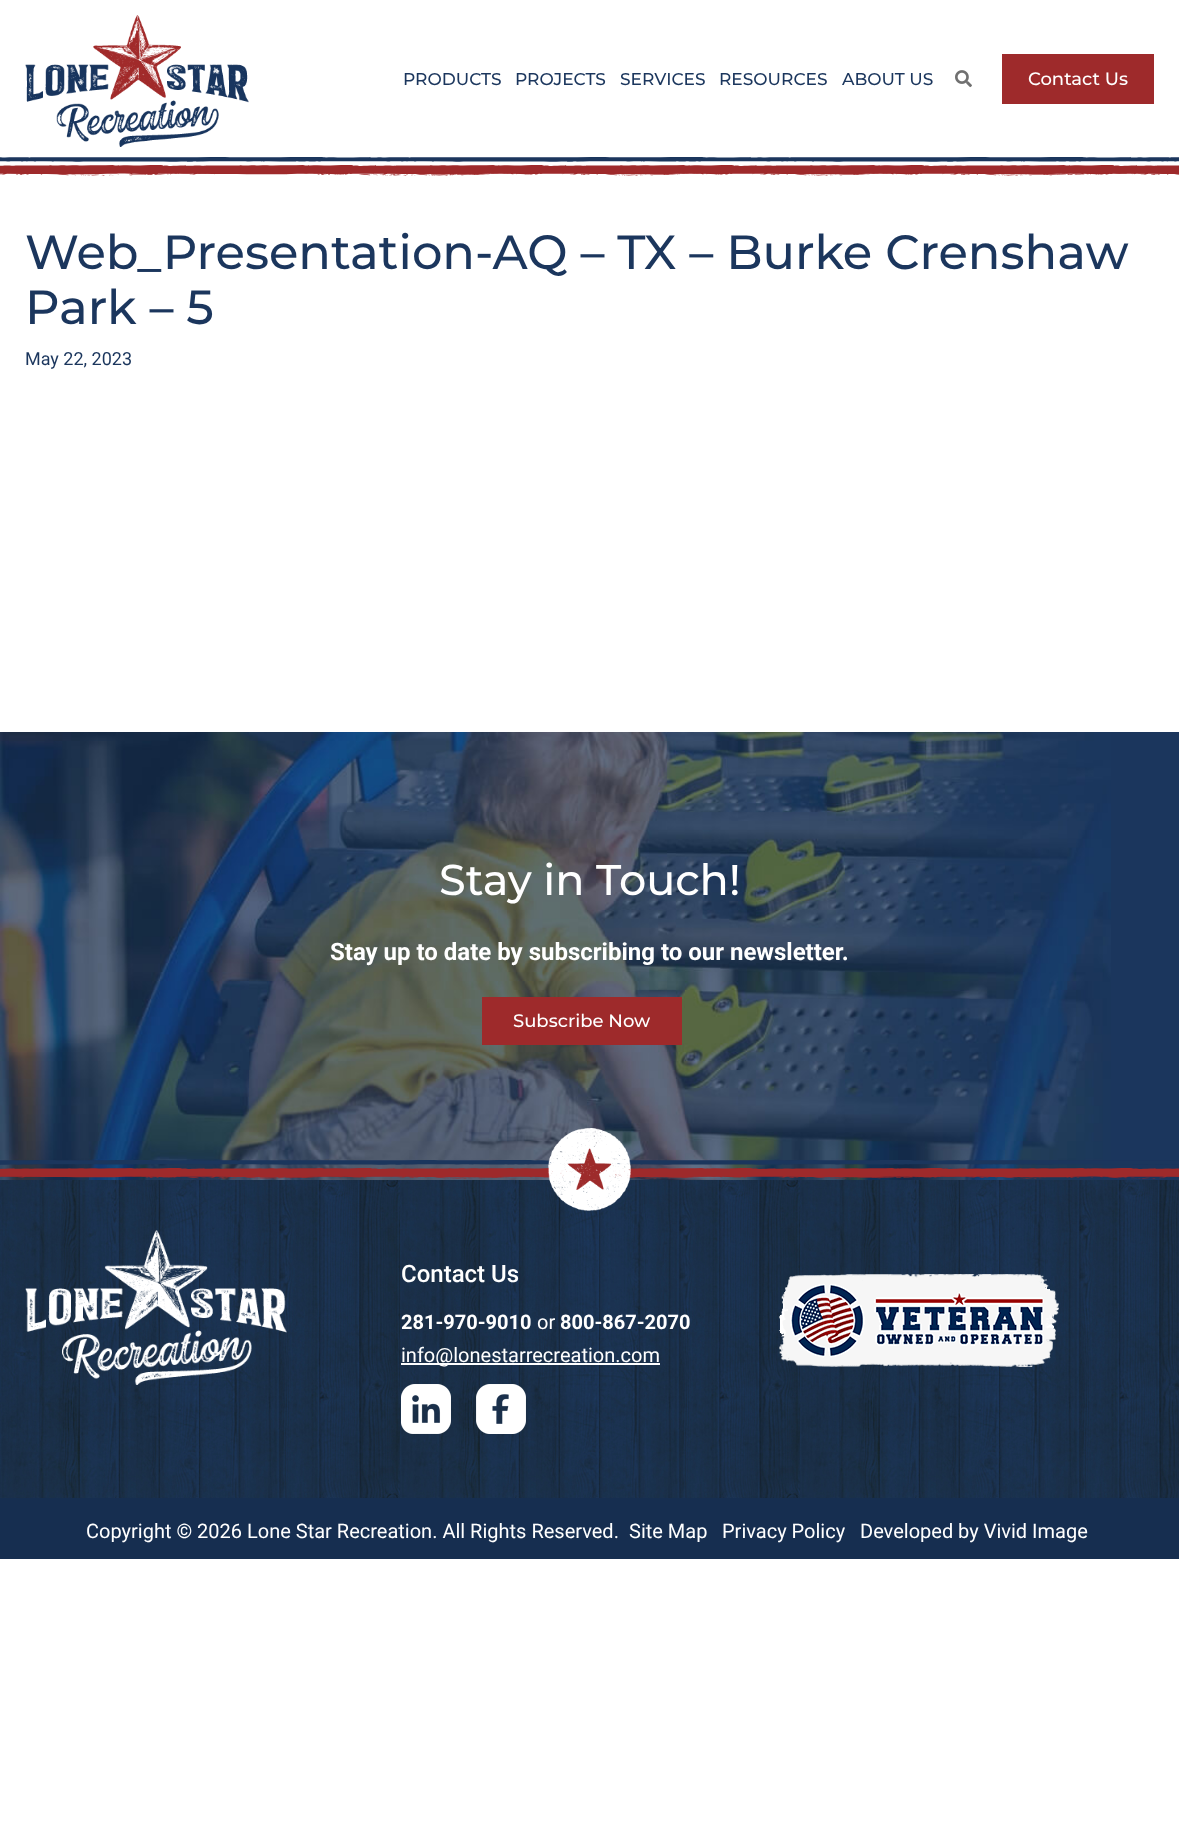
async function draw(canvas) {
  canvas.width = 1179;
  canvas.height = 1840;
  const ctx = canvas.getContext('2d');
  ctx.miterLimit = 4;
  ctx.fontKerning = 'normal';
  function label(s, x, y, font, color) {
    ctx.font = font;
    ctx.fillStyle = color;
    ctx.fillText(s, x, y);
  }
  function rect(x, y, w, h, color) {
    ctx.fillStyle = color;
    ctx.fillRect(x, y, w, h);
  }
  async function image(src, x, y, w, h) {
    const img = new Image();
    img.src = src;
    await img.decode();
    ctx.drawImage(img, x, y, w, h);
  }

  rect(0, 0, 1179, 1840, '#fff');
  await image('assets/img1.png', 25, 15, 224, 132);
  label('PRODUCTS', 403, 85, '100 17px Montserrat', '#1b365d');
  label('PROJECTS', 515, 85, '100 17px Montserrat', '#1b365d');
  label('SERVICES', 620, 85, '100 17px Montserrat', '#1b365d');
  label('RESOURCES', 719, 85, '100 17px Montserrat', '#1b365d');
  label('ABOUT US', 842, 85, '100 17px Montserrat', '#1b365d');
  await image('assets/img2.png', 955, 70, 17, 18);
  rect(1002, 54, 152, 50, '#9e2a2b');
  label('Contact Us', 1028, 85, '100 18px Montserrat', '#fff');
  await image('assets/img3.png', 0, 157, 1179, 19);
  label('Web_Presentation-AQ – TX – Burke Crenshaw', 25, 269, '100 48px Montserrat', '#1b365d');
  label('Park – 5', 25, 324, '100 48px Montserrat', '#1b365d');
  label('May 22, 2023', 25, 365, '18px Roboto', '#1b365d');
  rect(1111, 732, 68, 448, '#1b365d');
  await image('assets/img4.png', 0, 732, 1111, 448);
  label('Stay in Touch!', 439, 895, '100 43px Montserrat', '#fff');
  label('Stay up to date by subscribing to our newsletter.', 330, 960, 'bold 24px Roboto', '#fff');
  rect(482, 997, 200, 48, '#9e2a2b');
  label('Subscribe Now', 513, 1027, '100 18px Montserrat', '#fff');
  await image('assets/img5.png', 0, 1180, 1179, 318);
  await image('assets/img6.png', 0, 1128, 1179, 83);
  await image('assets/img7.png', 25, 1230, 262, 155);
  label('Contact Us', 401, 1282, '500 24px Roboto', '#fff');
  label('281-970-9010', 401, 1329, 'bold 20px Roboto', '#fff');
  label('or', 537, 1329, '20px Roboto', '#fff');
  label('800-867-2070', 560, 1329, 'bold 20px Roboto', '#fff');
  rect(401, 1363, 259, 2, '#fff');
  label('info@lonestarrecreation.com', 401, 1362, '20px Roboto', '#fff');
  await image('assets/img8.png', 401, 1384, 50, 50);
  await image('assets/img9.png', 476, 1384, 50, 50);
  await image('assets/img10.png', 779, 1274, 280, 93);
  rect(0, 1498, 1179, 61, '#162e50');
  label('Copyright © 2026 Lone Star Recreation. All Rights Reserved.', 86, 1538, '20px Roboto', '#fff');
  label('Site Map', 629, 1538, '20px Roboto', '#fff');
  label('Privacy Policy', 722, 1538, '20px Roboto', '#fff');
  label('Developed by Vivid Image', 860, 1538, '20px Roboto', '#fff');
}

draw(document.querySelector('canvas'));
